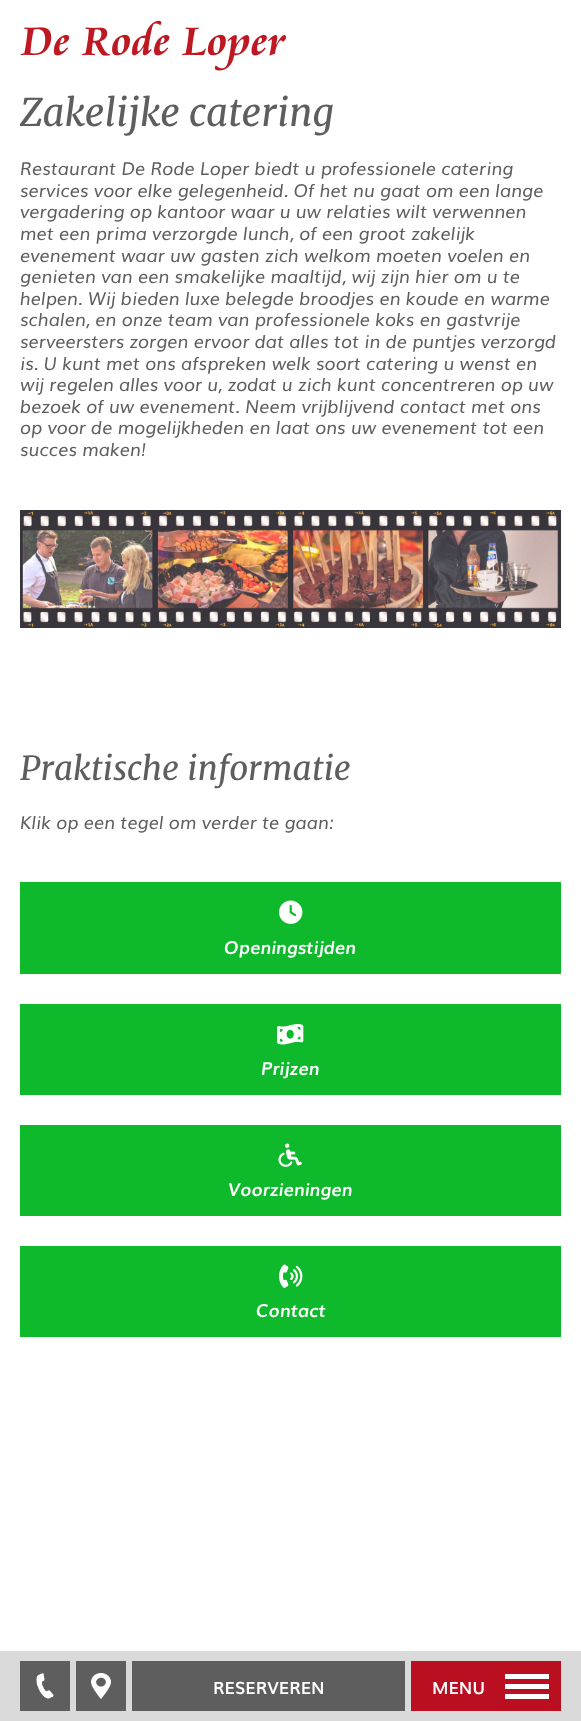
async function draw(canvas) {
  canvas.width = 581;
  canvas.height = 1721;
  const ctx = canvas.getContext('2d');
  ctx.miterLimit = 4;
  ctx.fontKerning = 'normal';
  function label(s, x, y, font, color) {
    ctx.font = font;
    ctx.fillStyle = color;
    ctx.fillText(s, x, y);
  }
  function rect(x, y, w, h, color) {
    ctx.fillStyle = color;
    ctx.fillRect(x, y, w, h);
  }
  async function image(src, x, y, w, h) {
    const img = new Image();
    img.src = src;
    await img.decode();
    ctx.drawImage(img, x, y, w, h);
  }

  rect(0, 0, 581, 1721, '#fff');
  await image('assets/img1.png', 20, 20, 267, 51);
  label('Zakelijke catering', 20, 126, 'italic 38px Merriweather', '#5e5e5e');
  label('Restaurant De Rode Loper biedt u professionele catering', 20, 175, 'italic 18px Muli', '#5e5e5e');
  label('services voor elke gelegenheid. Of het nu gaat om een lange', 20, 197, 'italic 18px Muli', '#5e5e5e');
  label('vergadering op kantoor waar u uw relaties wilt verwennen', 20, 218, 'italic 18px Muli', '#5e5e5e');
  label('met een prima verzorgde lunch, of een groot zakelijk', 20, 240, 'italic 18px Muli', '#5e5e5e');
  label('evenement waar uw gasten zich welkom moeten voelen en', 20, 262, 'italic 18px Muli', '#5e5e5e');
  label('genieten van een smakelijke maaltijd, wij zijn hier om u te', 20, 283, 'italic 18px Muli', '#5e5e5e');
  label('helpen. Wij bieden luxe belegde broodjes en koude en warme', 20, 305, 'italic 18px Muli', '#5e5e5e');
  label('schalen, en onze team van professionele koks en gastvrije', 20, 326, 'italic 18px Muli', '#5e5e5e');
  label('serveersters zorgen ervoor dat alles tot in de puntjes verzorgd', 20, 348, 'italic 18px Muli', '#5e5e5e');
  label('is. U kunt met ons afspreken welk soort catering u wenst en', 20, 370, 'italic 18px Muli', '#5e5e5e');
  label('wij regelen alles voor u, zodat u zich kunt concentreren op uw', 20, 391, 'italic 18px Muli', '#5e5e5e');
  label('bezoek of uw evenement. Neem vrijblijvend contact met ons', 20, 413, 'italic 18px Muli', '#5e5e5e');
  label('op voor de mogelijkheden en laat ons uw evenement tot een', 20, 434, 'italic 18px Muli', '#5e5e5e');
  label('succes maken!', 20, 456, 'italic 18px Muli', '#5e5e5e');
  await image('assets/img2.png', 20, 510, 541, 118);
  label('Praktische informatie', 20, 780, 'italic 33px Merriweather', '#5e5e5e');
  label('Klik op een tegel om verder te gaan:', 20, 829, 'italic 18px Muli', '#5e5e5e');
  rect(20, 882, 541, 92, '#0eba2b');
  await image('assets/img3.png', 279, 900, 24, 24);
  label('Openingstijden', 224, 954, 'italic bold 18px Muli', '#fff');
  rect(20, 1004, 541, 91, '#0eba2b');
  await image('assets/img4.png', 277, 1024, 27, 21);
  label('Prijzen', 261, 1075, 'italic bold 18px Muli', '#fff');
  rect(20, 1125, 541, 91, '#0eba2b');
  await image('assets/img5.png', 278, 1143, 24, 24);
  label('Voorzieningen', 228, 1196, 'italic bold 18px Muli', '#fff');
  rect(20, 1246, 541, 91, '#0eba2b');
  await image('assets/img6.png', 279, 1264, 24, 24);
  label('Contact', 256, 1317, 'italic bold 18px Muli', '#fff');
  rect(0, 1651, 581, 70, '#dadada');
  rect(20, 1661, 50, 50, '#5e5e5e');
  await image('assets/img7.png', 36, 1673, 18, 26);
  rect(76, 1661, 50, 50, '#5e5e5e');
  await image('assets/img8.png', 91, 1673, 20, 26);
  rect(132, 1661, 273, 50, '#5e5e5e');
  label('RESERVEREN', 213, 1694, 'bold 17px Muli', '#fff');
  rect(411, 1661, 150, 50, '#ba0f20');
  label('MENU', 432, 1694, 'bold 17px Muli', '#fff');
  rect(505, 1674, 44, 5, '#fff');
  rect(505, 1684, 44, 5, '#fff');
  rect(505, 1694, 44, 5, '#fff');
}

draw(document.querySelector('canvas'));
